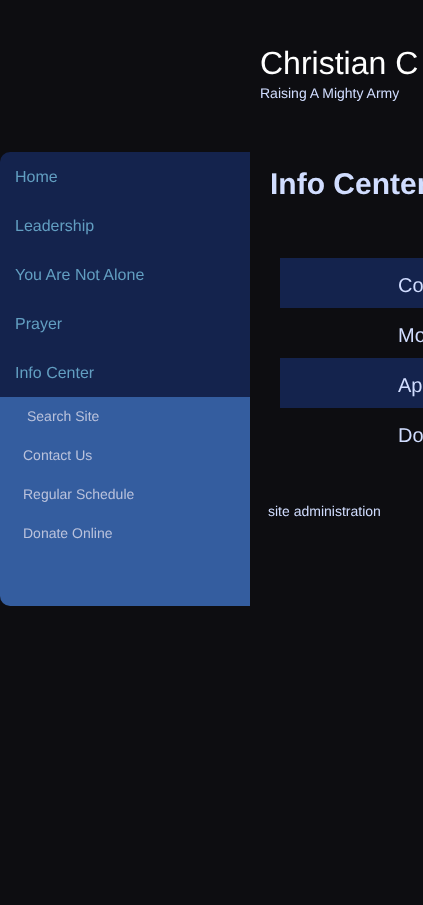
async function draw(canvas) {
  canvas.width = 423;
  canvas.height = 905;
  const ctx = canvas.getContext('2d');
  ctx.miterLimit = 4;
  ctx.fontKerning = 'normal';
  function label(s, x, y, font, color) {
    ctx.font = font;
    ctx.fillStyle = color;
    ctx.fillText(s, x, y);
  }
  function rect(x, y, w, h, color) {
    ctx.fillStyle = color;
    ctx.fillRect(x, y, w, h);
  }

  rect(0, 0, 423, 905, '#0d0d11');
  label('Christian C', 260, 74, '32px Liberation Sans', '#fff');
  label('Raising A Mighty Army', 260, 98, '14px Liberation Sans', '#d1ddff');
  ctx.fillStyle = '#14234d';
  ctx.beginPath();
  ctx.roundRect(0, 152, 250, 49, [10, 0, 0, 0]);
  ctx.fill();
  label('Home', 15, 182, '16px Liberation Sans', '#629ec1');
  rect(0, 201, 250, 196, '#14234d');
  label('Leadership', 15, 231, '16px Liberation Sans', '#629ec1');
  label('You Are Not Alone', 15, 280, '16px Liberation Sans', '#629ec1');
  label('Prayer', 15, 329, '16px Liberation Sans', '#629ec1');
  label('Info Center', 15, 378, '16px Liberation Sans', '#629ec1');
  rect(0, 397, 250, 156, '#345d9f');
  label('Search Site', 27, 421, '14px Liberation Sans', '#bac2dc');
  label('Contact Us', 23, 460, '14px Liberation Sans', '#bac2dc');
  label('Regular Schedule', 23, 499, '14px Liberation Sans', '#bac2dc');
  label('Donate Online', 23, 538, '14px Liberation Sans', '#bac2dc');
  ctx.fillStyle = '#345d9f';
  ctx.beginPath();
  ctx.roundRect(0, 553, 250, 53, [0, 0, 0, 10]);
  ctx.fill();
  label('Info Center', 270, 194, 'bold 30px Liberation Sans', '#d1ddff');
  rect(280, 258, 143, 50, '#14234d');
  label('Co', 398, 292, '20px Liberation Sans', '#d1ddff');
  label('Mo', 398, 342, '20px Liberation Sans', '#d1ddff');
  rect(280, 358, 143, 50, '#14234d');
  label('Ap', 398, 392, '20px Liberation Sans', '#d1ddff');
  label('Do', 398, 442, '20px Liberation Sans', '#d1ddff');
  label('site administration', 268, 516, '14px Liberation Sans', '#d1ddff');
}

draw(document.querySelector('canvas'));
